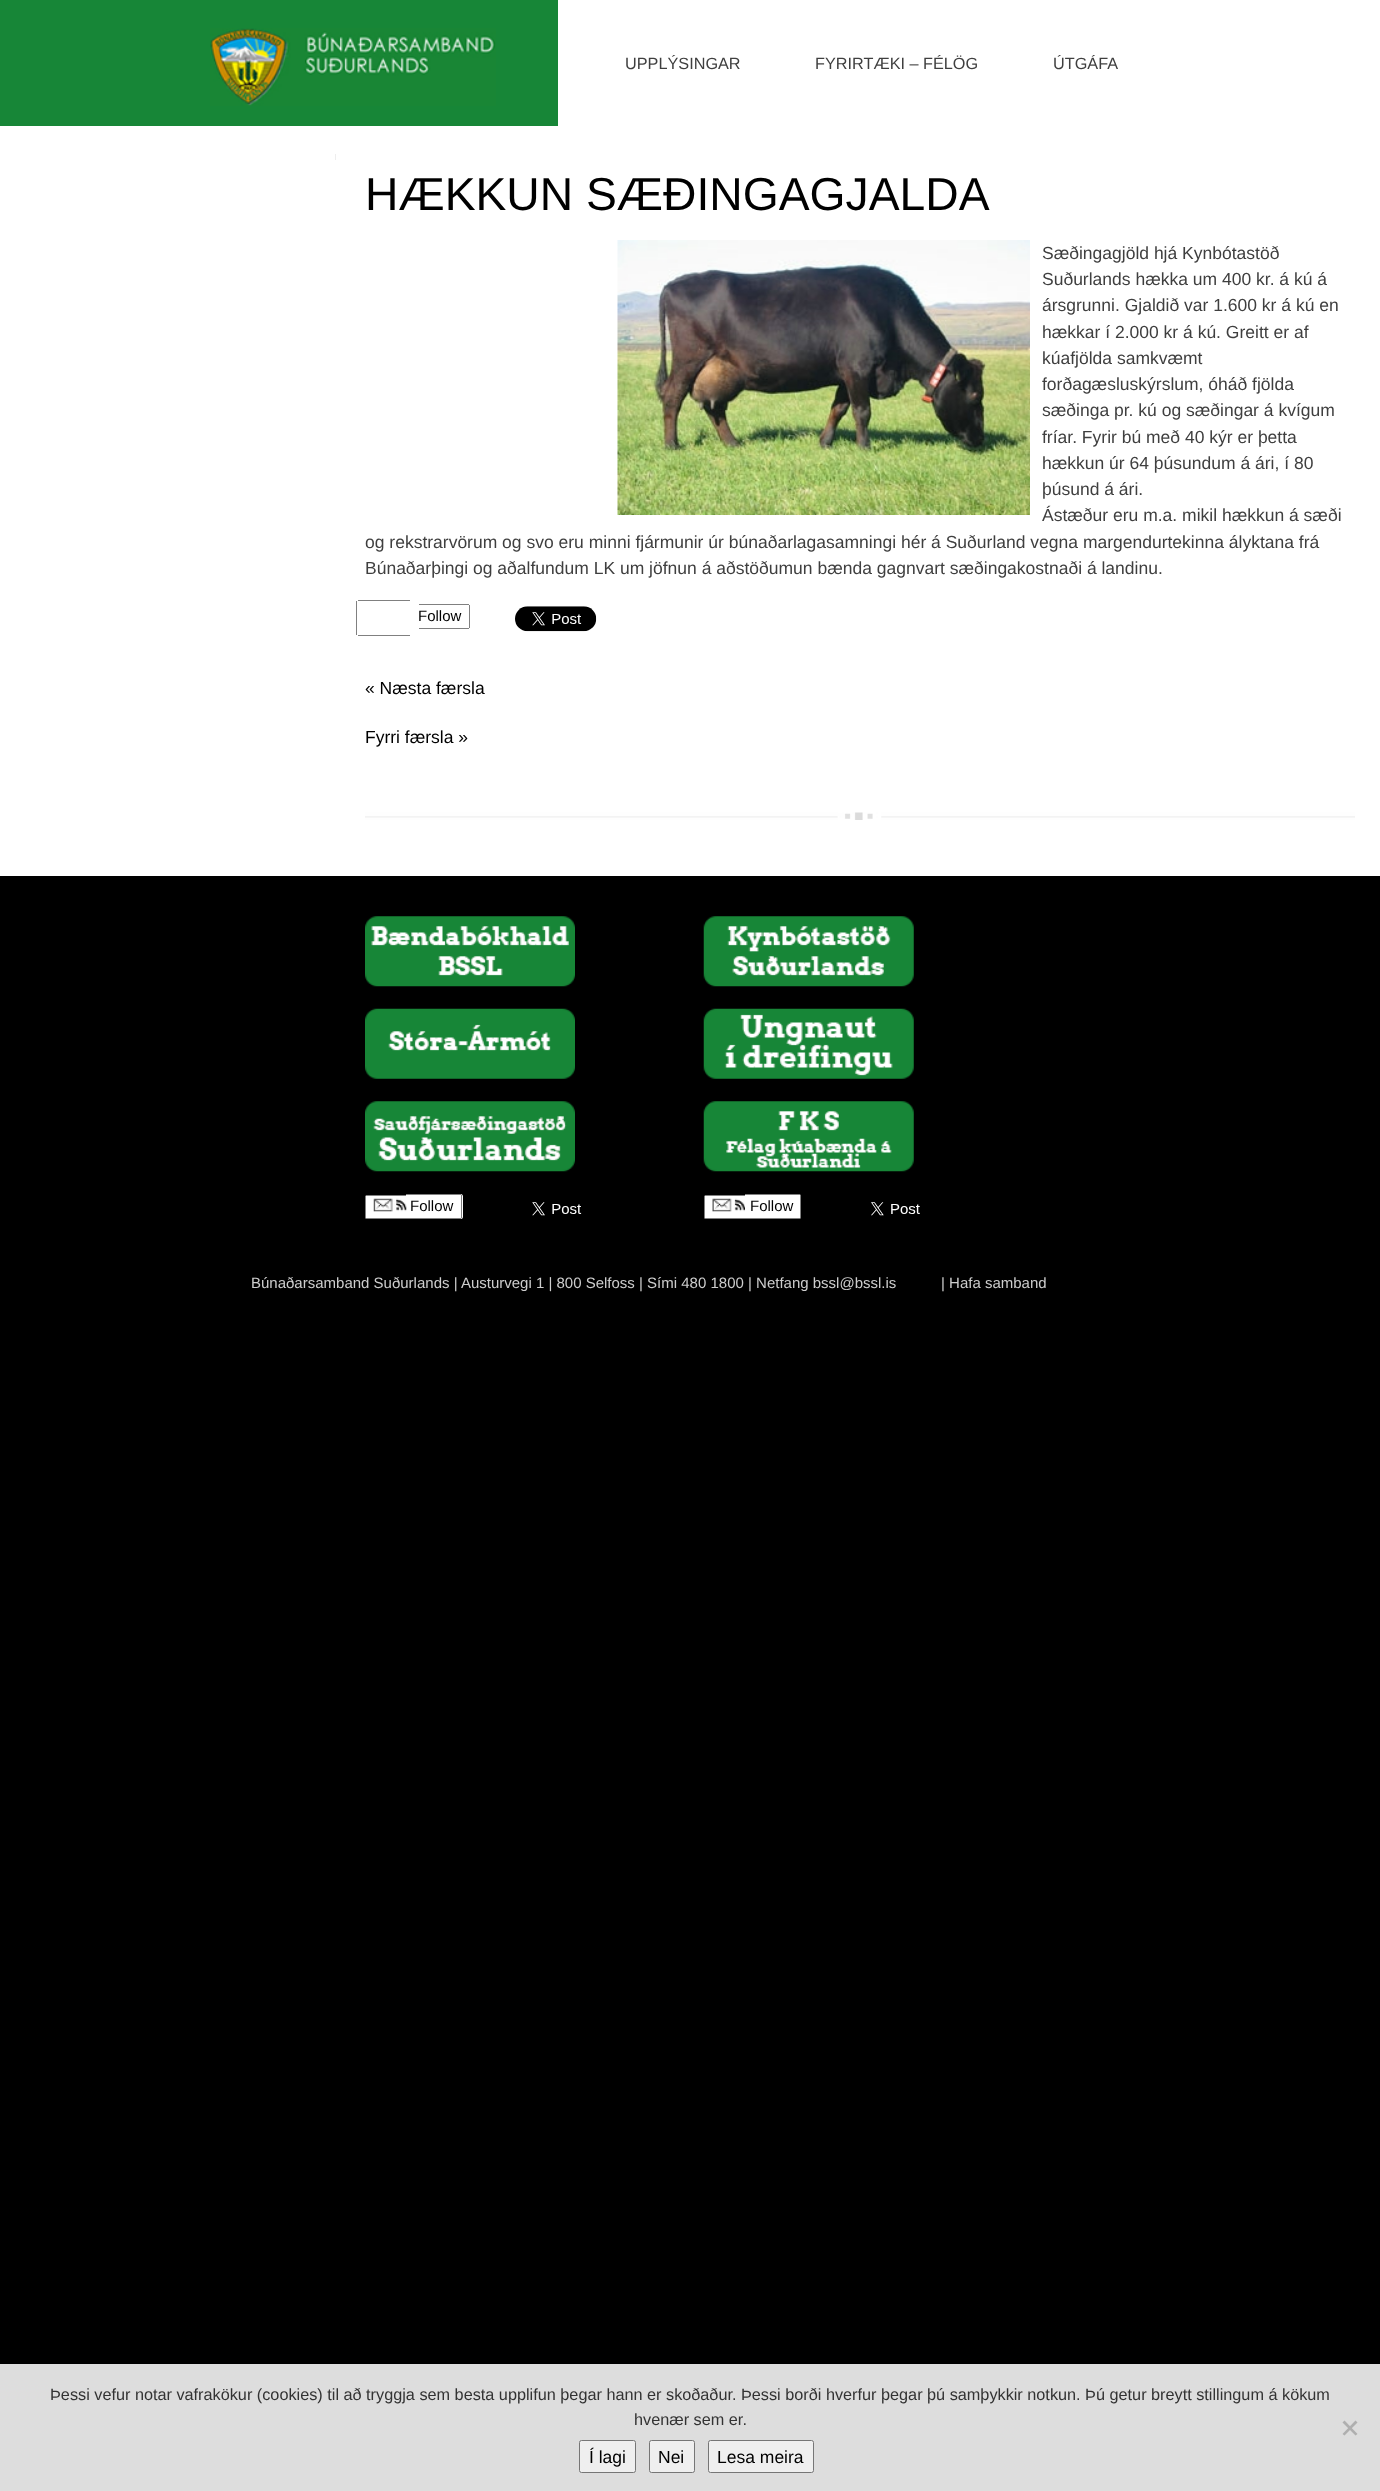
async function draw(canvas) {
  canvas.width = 1380;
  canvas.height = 2491;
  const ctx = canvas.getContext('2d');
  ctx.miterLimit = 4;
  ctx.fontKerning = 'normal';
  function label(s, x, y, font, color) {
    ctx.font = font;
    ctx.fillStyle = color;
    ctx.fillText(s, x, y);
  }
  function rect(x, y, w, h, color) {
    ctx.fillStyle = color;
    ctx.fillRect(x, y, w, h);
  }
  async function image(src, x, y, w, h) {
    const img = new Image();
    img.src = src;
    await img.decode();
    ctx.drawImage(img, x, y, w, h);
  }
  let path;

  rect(0, 0, 1380, 2491, '#000');
  rect(558, 0, 822, 126, '#fff');
  rect(0, 0, 558, 126, '#178637');
  await image('assets/img1.png', 210, 28, 286, 78);
  label('UPPLÝSINGAR', 625, 69, '16.25px Liberation Sans', '#3f3f3f');
  label('FYRIRTÆKI – FÉLÖG', 815, 69, '16.25px Liberation Sans', '#3f3f3f');
  label('ÚTGÁFA', 1053, 69, '16.25px Liberation Sans', '#3f3f3f');
  rect(0, 126, 1380, 750, '#fff');
  rect(335, 154, 1, 6, '#eee');
  await image('assets/img2.png', 365, 812, 990, 8);
  label('HÆKKUN SÆÐINGAGJALDA', 365, 210, '46.25px Liberation Sans', '#000');
  await image('assets/img3.png', 617, 240, 413, 275);
  label('Sæðingagjöld hjá Kynbótastöð', 1042, 259, '17.5px Liberation Sans', '#3f3f3f');
  label('Suðurlands hækka um 400 kr. á kú á', 1042, 285, '17.5px Liberation Sans', '#3f3f3f');
  label('ársgrunni. Gjaldið var 1.600 kr á kú en', 1042, 311, '17.5px Liberation Sans', '#3f3f3f');
  label('hækkar í 2.000 kr á kú. Greitt er af', 1042, 338, '17.5px Liberation Sans', '#3f3f3f');
  label('kúafjölda samkvæmt', 1042, 364, '17.5px Liberation Sans', '#3f3f3f');
  label('forðagæsluskýrslum, óháð fjölda', 1042, 390, '17.5px Liberation Sans', '#3f3f3f');
  label('sæðinga pr. kú og sæðingar á kvígum', 1042, 416, '17.5px Liberation Sans', '#3f3f3f');
  label('fríar. Fyrir bú með 40 kýr er þetta', 1042, 443, '17.5px Liberation Sans', '#3f3f3f');
  label('hækkun úr 64 þúsundum á ári, í 80', 1042, 469, '17.5px Liberation Sans', '#3f3f3f');
  label('þúsund á ári.', 1042, 495, '17.5px Liberation Sans', '#3f3f3f');
  label('Ástæður eru m.a. mikil hækkun á sæði', 1042, 521, '17.5px Liberation Sans', '#3f3f3f');
  label('og rekstrarvörum og svo eru minni fjármunir úr búnaðarlagasamningi hér á Suðurland vegna margendurtekinna ályktana frá', 365, 548, '17.5px Liberation Sans', '#3f3f3f');
  label('Búnaðarþingi og aðalfundum LK um jöfnun á aðstöðumun bænda gagnvart sæðingakostnaði á landinu.', 365, 574, '17.5px Liberation Sans', '#3f3f3f');
  label('Follow', 418, 621, '15px Liberation Sans', '#000');
  rect(358, 600, 52, 1, '#808080');
  rect(358, 635, 52, 1, '#808080');
  rect(356, 601, 1, 34, '#808080');
  rect(419, 604, 50, 1, '#808080');
  rect(469, 605, 1, 23, '#808080');
  rect(419, 628, 50, 1, '#808080');
  await image('assets/img4.png', 515, 606, 82, 26);
  label('« Næsta færsla', 365, 694, '17.5px Liberation Sans', '#000');
  label('Fyrri færsla »', 365, 743, '17.5px Liberation Sans', '#000');
  await image('assets/img5.png', 365, 916, 210, 71);
  await image('assets/img6.png', 365, 1008, 210, 71);
  await image('assets/img7.png', 365, 1101, 210, 71);
  ctx.fillStyle = '#fff';
  ctx.beginPath();
  ctx.roundRect(365, 1195, 41, 24, [2.5, 0, 0, 2.5]);
  ctx.fill();
  ctx.beginPath();
  ctx.roundRect(406, 1194, 57, 25, [0, 2.5, 2.5, 0]);
  ctx.fill();
  await image('assets/img8.png', 373, 1198, 34, 14);
  label('Follow', 410, 1211, '15px Liberation Sans', '#000');
  rect(366, 1195, 40, 1, '#808080');
  rect(366, 1218, 40, 1, '#808080');
  rect(365, 1196, 1, 22, '#808080');
  rect(406, 1194, 55, 1, '#808080');
  rect(461, 1195, 1, 23, '#808080');
  rect(406, 1218, 55, 1, '#808080');
  await image('assets/img9.png', 532, 1202, 50, 14);
  await image('assets/img10.png', 703, 916, 211, 71);
  await image('assets/img11.png', 703, 1008, 211, 71);
  await image('assets/img12.png', 703, 1101, 211, 71);
  ctx.fillStyle = '#fff';
  ctx.beginPath();
  ctx.roundRect(704, 1195, 41, 24, [2.5, 0, 0, 2.5]);
  ctx.fill();
  await image('assets/img13.png', 712, 1198, 33, 14);
  ctx.beginPath();
  ctx.roundRect(745, 1194, 56, 25, [0, 2.5, 2.5, 0]);
  ctx.fill();
  label('Follow', 750, 1211, '15px Liberation Sans', '#000');
  rect(705, 1195, 40, 1, '#808080');
  rect(705, 1218, 40, 1, '#808080');
  rect(704, 1196, 1, 22, '#808080');
  rect(745, 1194, 55, 1, '#808080');
  rect(800, 1195, 1, 23, '#808080');
  rect(745, 1218, 55, 1, '#808080');
  await image('assets/img14.png', 871, 1202, 49, 14);
  label('Búnaðarsamband Suðurlands | Austurvegi 1 | 800 Selfoss | Sími 480 1800 | Netfang bssl@bssl.is', 251, 1288, '15px Liberation Sans', '#cdcdcd');
  label('| Hafa samband', 941, 1288, '15px Liberation Sans', '#cdcdcd');
  rect(0, 2364, 1380, 127, '#ddd');
  label('Þessi vefur notar vafrakökur (cookies) til að tryggja sem besta upplifun þegar hann er skoðaður. Þessi borði hverfur þegar þú samþykkir notkun. Þú getur breytt stillingum á kökum', 50, 2400, '16.25px Liberation Sans', '#333');
  label('hvenær sem er.', 634, 2425, '16.25px Liberation Sans', '#333');
  ctx.fillStyle = '#afafaf';
  path = new Path2D('M1355.5 2420.5L1357.5 2422.5L1344.5 2435.5L1342.5 2434Z');
  ctx.fill(path);
  path = new Path2D('M1342.5 2422.5L1344.5 2420.5L1357.5 2434L1355.5 2435.5Z');
  ctx.fill(path);
  ctx.fillStyle = '#efefef';
  ctx.beginPath();
  ctx.roundRect(579.5, 2440.5, 56, 32, 2);
  ctx.fill();
  ctx.strokeStyle = '#767676';
  ctx.stroke();
  label('Í lagi', 589, 2463, '17.5px Liberation Sans', '#000');
  ctx.fillStyle = '#efefef';
  ctx.beginPath();
  ctx.roundRect(649.5, 2440.5, 45, 32, 2);
  ctx.fill();
  ctx.stroke();
  label('Nei', 658, 2463, '17.5px Liberation Sans', '#000');
  ctx.fillStyle = '#efefef';
  ctx.beginPath();
  ctx.roundRect(708.5, 2440.5, 105, 32, 2);
  ctx.fill();
  ctx.stroke();
  label('Lesa meira', 717, 2463, '17.5px Liberation Sans', '#000');
}

draw(document.querySelector('canvas'));
